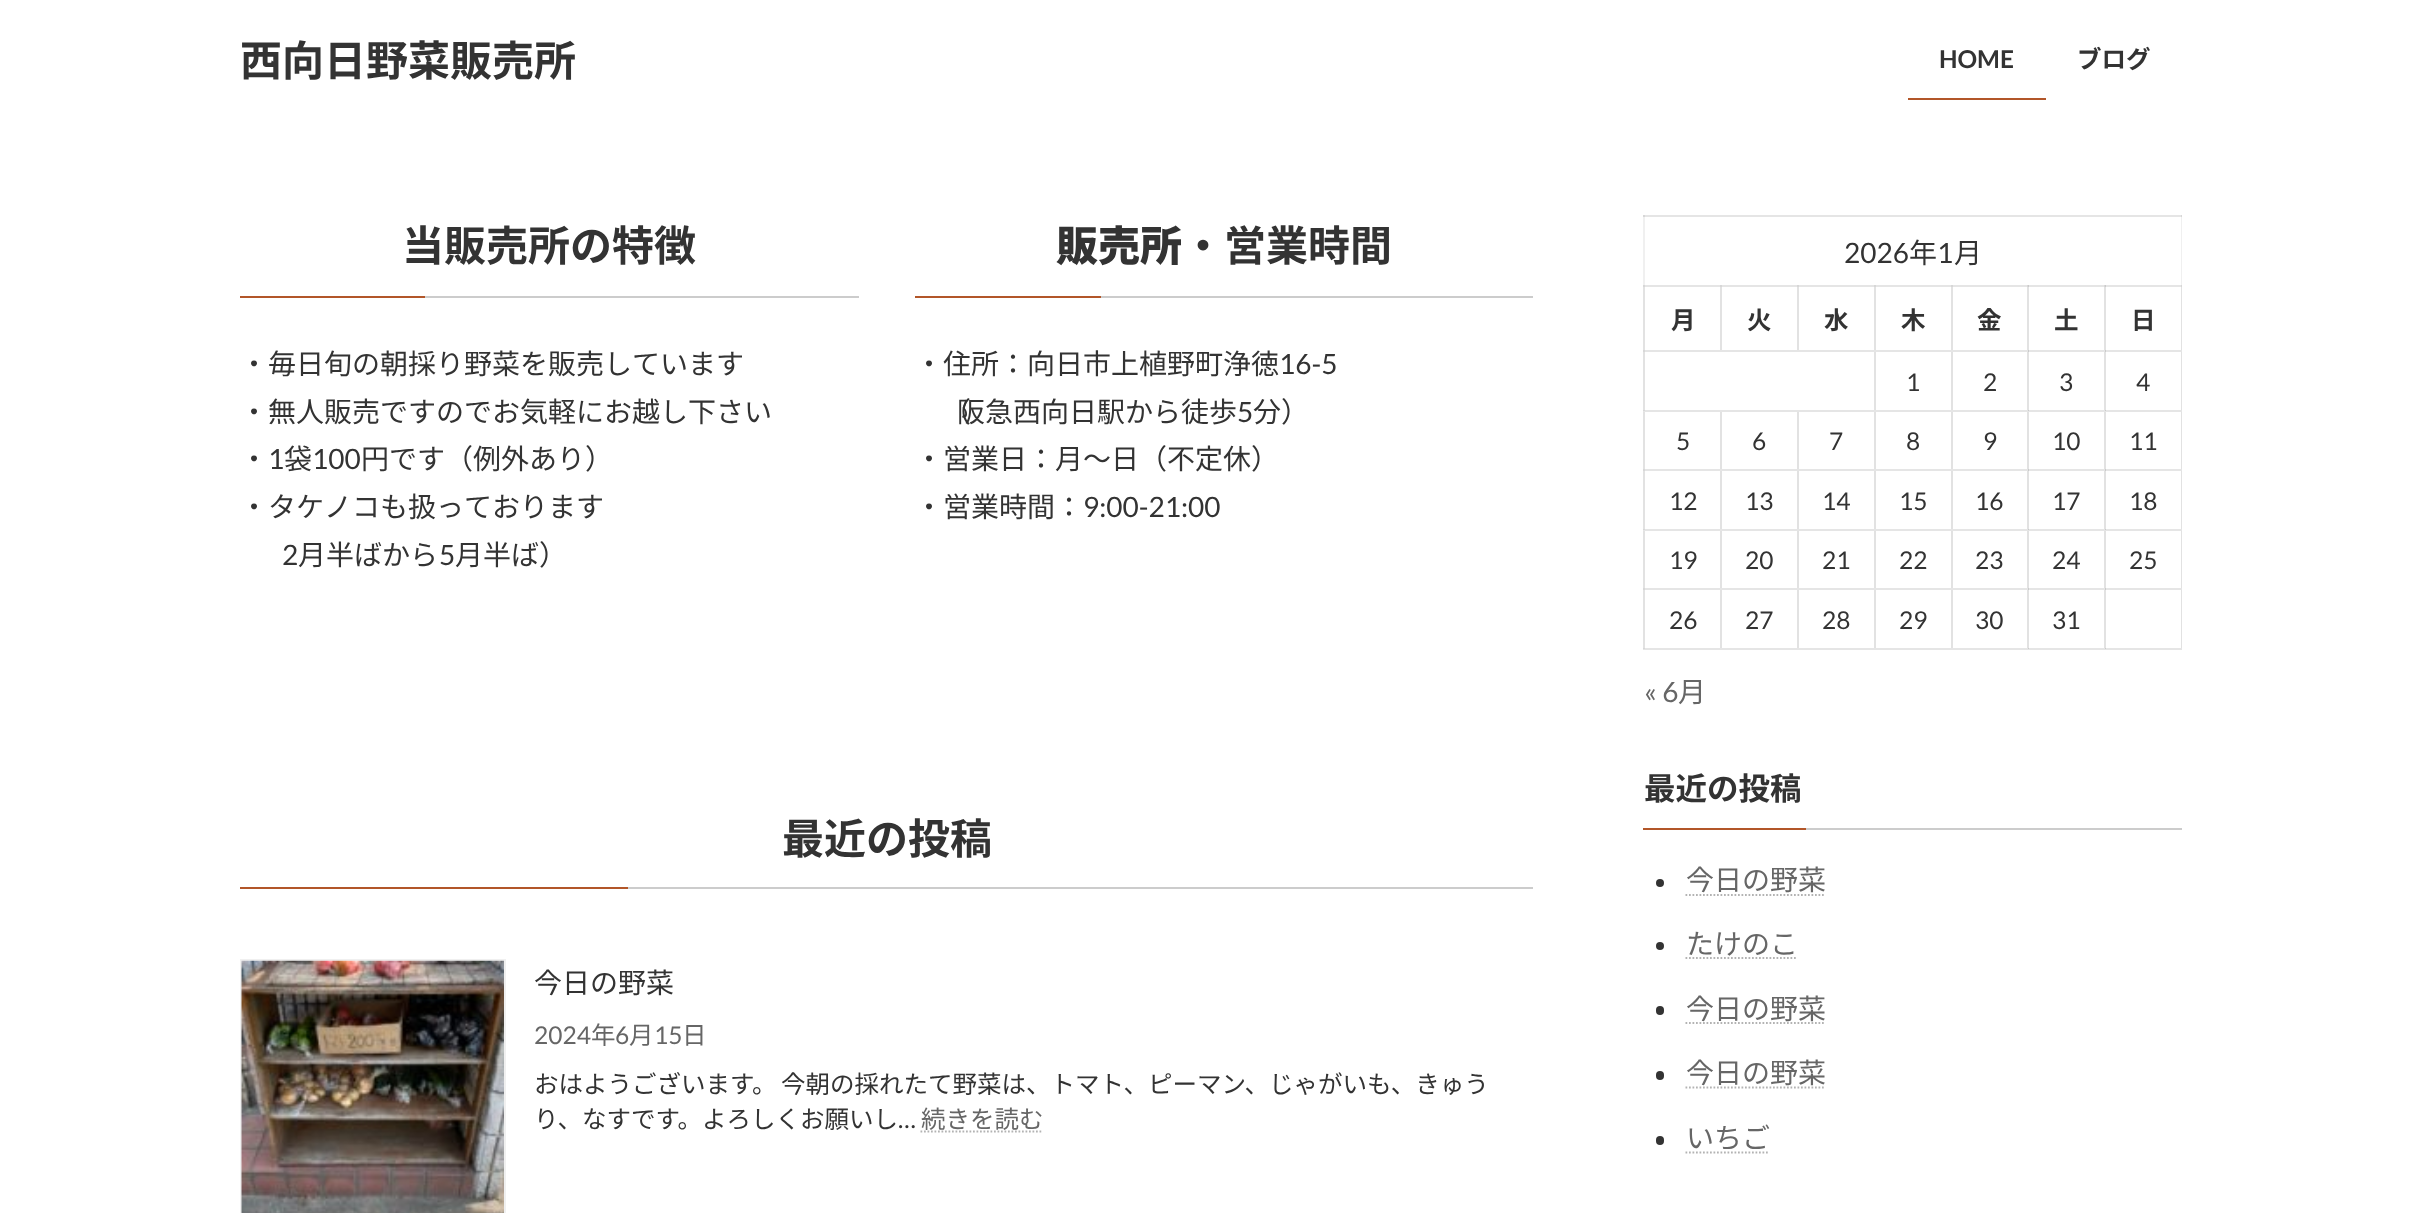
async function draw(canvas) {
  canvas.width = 2422;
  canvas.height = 1213;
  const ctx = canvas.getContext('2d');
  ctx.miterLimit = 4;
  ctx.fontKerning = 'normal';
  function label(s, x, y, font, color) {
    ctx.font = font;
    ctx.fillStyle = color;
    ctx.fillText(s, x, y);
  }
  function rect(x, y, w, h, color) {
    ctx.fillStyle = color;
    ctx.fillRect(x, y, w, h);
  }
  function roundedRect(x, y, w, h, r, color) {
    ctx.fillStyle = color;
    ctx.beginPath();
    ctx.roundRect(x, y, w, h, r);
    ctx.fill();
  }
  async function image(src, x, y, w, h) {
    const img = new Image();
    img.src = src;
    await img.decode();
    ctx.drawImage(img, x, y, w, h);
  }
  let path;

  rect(0, 0, 2422, 1213, '#fff');
  rect(1720, 285, 2, 67, '#e2e2e2');
  rect(1797, 285, 2, 67, '#e2e2e2');
  rect(1874, 285, 2, 364, '#e2e2e2');
  rect(1951, 285, 2, 364, '#e2e2e2');
  rect(2027, 285, 2, 364, '#e2e2e2');
  rect(2104, 285, 2, 364, '#e2e2e2');
  rect(1720, 410, 2, 239, '#e2e2e2');
  rect(1797, 410, 2, 239, '#e2e2e2');
  rect(1643, 215, 2, 70, '#f0f0f0');
  rect(1643, 285, 2, 364, '#e2e2e2');
  rect(2181, 215, 1, 70, '#f0f0f0');
  rect(2181, 285, 1, 364, '#e2e2e2');
  label('西向日野菜販売所', 240, 76, 'bold 42px Noto Sans JP', '#333');
  label('HOME', 1939, 68, 'bold 24.5px Lato', '#333');
  rect(1908, 98, 138, 2, '#b25629');
  label('ブログ', 2077, 68, 'bold 24.5px Noto Sans JP', '#333');
  rect(425, 296, 434, 2, '#ccc');
  label('当販売所の特徴', 402, 261, 'bold 42px Noto Sans JP', '#333');
  rect(240, 296, 185, 2, '#b25629');
  label('・毎日旬の朝採り野菜を販売しています', 240, 374, '28px Noto Sans JP', '#333');
  label('・無人販売ですのでお気軽にお越し下さい', 240, 422, '28px Noto Sans JP', '#333');
  label('・', 240, 469, '28px Noto Sans JP', '#333');
  label('1', 268, 469, '28px Lato', '#333');
  label('袋', 284, 469, '28px Noto Sans JP', '#333');
  label('100', 312, 469, '28px Lato', '#333');
  label('円です（例外あり）', 361, 469, '28px Noto Sans JP', '#333');
  label('・タケノコも扱っております', 240, 517, '28px Noto Sans JP', '#333');
  label('2', 282, 565, '28px Lato', '#333');
  label('月半ばから', 298, 565, '28px Noto Sans JP', '#333');
  label('5', 439, 565, '28px Lato', '#333');
  label('月半ば）', 455, 565, '28px Noto Sans JP', '#333');
  rect(1101, 296, 432, 2, '#ccc');
  label('販売所', 1056, 261, '900 42px Noto Sans JP', '#333');
  label('・営業時間', 1182, 261, 'bold 42px Noto Sans JP', '#333');
  rect(915, 296, 186, 2, '#b25629');
  label('・住所：向日市上植野町浄徳', 915, 374, '28px Noto Sans JP', '#333');
  label('16-5', 1279, 374, '28px Lato', '#333');
  label('（', 943, 422, '28px Noto Sans JP', '#333');
  label('阪急西向日駅から徒歩', 957, 422, '28px Noto Sans JP', '#333');
  label('5', 1237, 422, '28px Lato', '#333');
  label('分）', 1253, 422, '28px Noto Sans JP', '#333');
  label('・営業日：月〜日（不定休）', 915, 469, '28px Noto Sans JP', '#333');
  label('・営業時間：', 915, 517, '28px Noto Sans JP', '#333');
  label('9:00-21:00', 1083, 517, '28px Lato', '#333');
  rect(628, 887, 905, 2, '#ccc');
  label('最近の投稿', 782, 854, 'bold 42px Noto Sans JP', '#333');
  rect(240, 887, 388, 2, '#b25629');
  ctx.strokeStyle = '#f0f0f0';
  ctx.lineWidth = 2;
  ctx.strokeRect(241, 960, 264, 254);
  await image('assets/img1.png', 241, 960, 263, 253);
  label('今日の野菜', 534, 993, '28px Noto Sans JP', '#333');
  label('2024', 534, 1044, '24.5px Lato', '#666');
  label('年', 591, 1044, '24.5px Noto Sans JP', '#666');
  label('6', 615, 1044, '24.5px Lato', '#666');
  label('月', 629, 1044, '24.5px Noto Sans JP', '#666');
  label('15', 654, 1044, '24.5px Lato', '#666');
  label('日', 682, 1044, '24.5px Noto Sans JP', '#666');
  ctx.wordSpacing = '-1px';
  label('おはようございます。 今朝の採れたて野菜は、トマト、ピーマン、じゃがいも、きゅう', 534, 1093, '24.5px Noto Sans JP', '#333');
  ctx.wordSpacing = '0px';
  label('り、なすです。よろしくお願いし', 534, 1128, '24.5px Noto Sans JP', '#333');
  label('…', 898, 1128, '24.5px Lato', '#333');
  label('続きを読む', 921, 1128, '24.5px Noto Sans JP', '#666');
  path = new Path2D('M920.5 1131.5H1043');
  ctx.strokeStyle = '#b3b3b3';
  ctx.lineWidth = 1.8;
  ctx.setLineDash([1.75, 1.75]);
  ctx.stroke(path);
  rect(1643, 215, 539, 2, '#e5e5e5');
  rect(1643, 215, 2, 2, '#d7d7d7');
  rect(2181, 215, 1, 2, '#d7d7d7');
  label('2026', 1844, 263, '28px Lato', '#333');
  label('年', 1909, 263, '28px Noto Sans JP', '#333');
  label('1', 1937, 263, '28px Lato', '#333');
  label('月', 1954, 263, '28px Noto Sans JP', '#333');
  rect(2104, 285, 78, 2, '#e5e5e5');
  rect(2104, 285, 2, 2, '#cacaca');
  rect(2027, 285, 78, 2, '#e5e5e5');
  rect(2027, 285, 2, 2, '#cacaca');
  rect(1643, 285, 385, 2, '#e5e5e5');
  rect(1643, 285, 2, 2, '#d7d7d7');
  rect(1720, 285, 2, 2, '#d7d7d7');
  rect(2104, 350, 78, 2, '#e5e5e5');
  rect(2104, 350, 2, 2, '#cacaca');
  rect(2027, 350, 78, 2, '#e5e5e5');
  rect(2027, 350, 2, 2, '#cacaca');
  rect(1643, 350, 385, 2, '#e5e5e5');
  rect(1643, 350, 2, 2, '#d7d7d7');
  label('月', 1671, 329, 'bold 24.5px Noto Sans JP', '#333');
  rect(1797, 285, 2, 2, '#d7d7d7');
  label('火', 1747, 329, 'bold 24.5px Noto Sans JP', '#333');
  rect(1874, 285, 2, 2, '#d7d7d7');
  label('水', 1824, 329, 'bold 24.5px Noto Sans JP', '#333');
  rect(1951, 285, 2, 2, '#d7d7d7');
  label('木', 1901, 329, 'bold 24.5px Noto Sans JP', '#333');
  rect(2027, 285, 1, 2, '#d7d7d7');
  label('金', 1977, 329, 'bold 24.5px Noto Sans JP', '#333');
  rect(2104, 285, 1, 2, '#d7d7d7');
  label('土', 2054, 329, 'bold 24.5px Noto Sans JP', '#333');
  rect(2181, 285, 1, 2, '#d7d7d7');
  label('日', 2131, 329, 'bold 24.5px Noto Sans JP', '#333');
  label('1', 1906, 391, '24.5px Lato', '#333');
  rect(2104, 410, 78, 2, '#e5e5e5');
  rect(2104, 410, 2, 1, '#cacaca');
  rect(2027, 410, 78, 2, '#e5e5e5');
  rect(2027, 410, 2, 1, '#cacaca');
  rect(1643, 410, 385, 2, '#e5e5e5');
  label('2', 1983, 391, '24.5px Lato', '#333');
  label('3', 2059, 391, '24.5px Lato', '#333');
  label('4', 2136, 391, '24.5px Lato', '#333');
  rect(1643, 410, 2, 1, '#d7d7d7');
  rect(2104, 469, 78, 2, '#e5e5e5');
  rect(2104, 469, 2, 2, '#cacaca');
  rect(2027, 469, 78, 2, '#e5e5e5');
  rect(2027, 469, 2, 2, '#cacaca');
  rect(1643, 469, 385, 2, '#e5e5e5');
  rect(1643, 469, 2, 2, '#d7d7d7');
  label('5', 1676, 450, '24.5px Lato', '#333');
  label('6', 1752, 450, '24.5px Lato', '#333');
  label('7', 1829, 450, '24.5px Lato', '#333');
  label('8', 1906, 450, '24.5px Lato', '#333');
  label('9', 1983, 450, '24.5px Lato', '#333');
  label('10', 2052, 450, '24.5px Lato', '#333');
  label('11', 2129, 450, '24.5px Lato', '#333');
  rect(2104, 529, 78, 2, '#e5e5e5');
  rect(2104, 529, 2, 1, '#cacaca');
  rect(2027, 529, 78, 2, '#e5e5e5');
  rect(2027, 529, 2, 1, '#cacaca');
  rect(1643, 529, 385, 2, '#e5e5e5');
  rect(1643, 529, 2, 1, '#d7d7d7');
  label('12', 1669, 510, '24.5px Lato', '#333');
  label('13', 1745, 510, '24.5px Lato', '#333');
  label('14', 1822, 510, '24.5px Lato', '#333');
  label('15', 1899, 510, '24.5px Lato', '#333');
  label('16', 1975, 510, '24.5px Lato', '#333');
  label('17', 2052, 510, '24.5px Lato', '#333');
  label('18', 2129, 510, '24.5px Lato', '#333');
  rect(2104, 588, 78, 2, '#e5e5e5');
  rect(2104, 588, 2, 2, '#cacaca');
  rect(2027, 588, 78, 2, '#e5e5e5');
  rect(2027, 588, 2, 2, '#cacaca');
  rect(1643, 588, 385, 2, '#e5e5e5');
  rect(1643, 588, 2, 2, '#d7d7d7');
  label('19', 1669, 569, '24.5px Lato', '#333');
  label('20', 1745, 569, '24.5px Lato', '#333');
  label('21', 1822, 569, '24.5px Lato', '#333');
  label('22', 1899, 569, '24.5px Lato', '#333');
  label('23', 1975, 569, '24.5px Lato', '#333');
  label('24', 2052, 569, '24.5px Lato', '#333');
  label('25', 2129, 569, '24.5px Lato', '#333');
  rect(2104, 648, 78, 2, '#e5e5e5');
  rect(2104, 648, 2, 1, '#cacaca');
  rect(2027, 648, 78, 2, '#e5e5e5');
  rect(2027, 648, 2, 1, '#cacaca');
  rect(1643, 648, 385, 2, '#e5e5e5');
  rect(1643, 648, 2, 1, '#d7d7d7');
  label('26', 1669, 629, '24.5px Lato', '#333');
  label('27', 1745, 629, '24.5px Lato', '#333');
  label('28', 1822, 629, '24.5px Lato', '#333');
  label('29', 1899, 629, '24.5px Lato', '#333');
  label('30', 1975, 629, '24.5px Lato', '#333');
  label('31', 2052, 629, '24.5px Lato', '#333');
  label('« 6', 1644, 702, '28px Lato', '#666');
  label('月', 1678, 702, '28px Noto Sans JP', '#666');
  rect(1806, 828, 376, 2, '#ccc');
  label('最近の投稿', 1644, 800, 'bold 31.5px Noto Sans JP', '#333');
  rect(1643, 828, 163, 2, '#b25629');
  ctx.fillStyle = '#333';
  ctx.beginPath();
  ctx.arc(1660, 883, 4, 0, 2 * Math.PI);
  ctx.fill();
  label('今日の野菜', 1686, 890, '28px Noto Sans JP', '#666');
  path = new Path2D('M1685.5 895H1825.5');
  ctx.stroke(path);
  ctx.fillStyle = '#333';
  ctx.beginPath();
  ctx.arc(1660, 946, 4, 0, 2 * Math.PI);
  ctx.fill();
  label('たけのこ', 1686, 954, '28px Noto Sans JP', '#666');
  path = new Path2D('M1685.5 958H1797.5');
  ctx.stroke(path);
  roundedRect(1656, 1006, 8, 9, 4, '#333');
  label('今日の野菜', 1686, 1019, '28px Noto Sans JP', '#666');
  path = new Path2D('M1685.5 1023H1825.5');
  ctx.stroke(path);
  roundedRect(1656, 1071, 8, 9, 4, '#333');
  label('今日の野菜', 1686, 1083, '28px Noto Sans JP', '#666');
  path = new Path2D('M1685.5 1087.5H1825.5');
  ctx.stroke(path);
  roundedRect(1656, 1136, 8, 9, 4, '#333');
  label('いちご', 1686, 1148, '28px Noto Sans JP', '#666');
  path = new Path2D('M1685.5 1152.5H1769.5');
  ctx.stroke(path);
}

draw(document.querySelector('canvas'));
